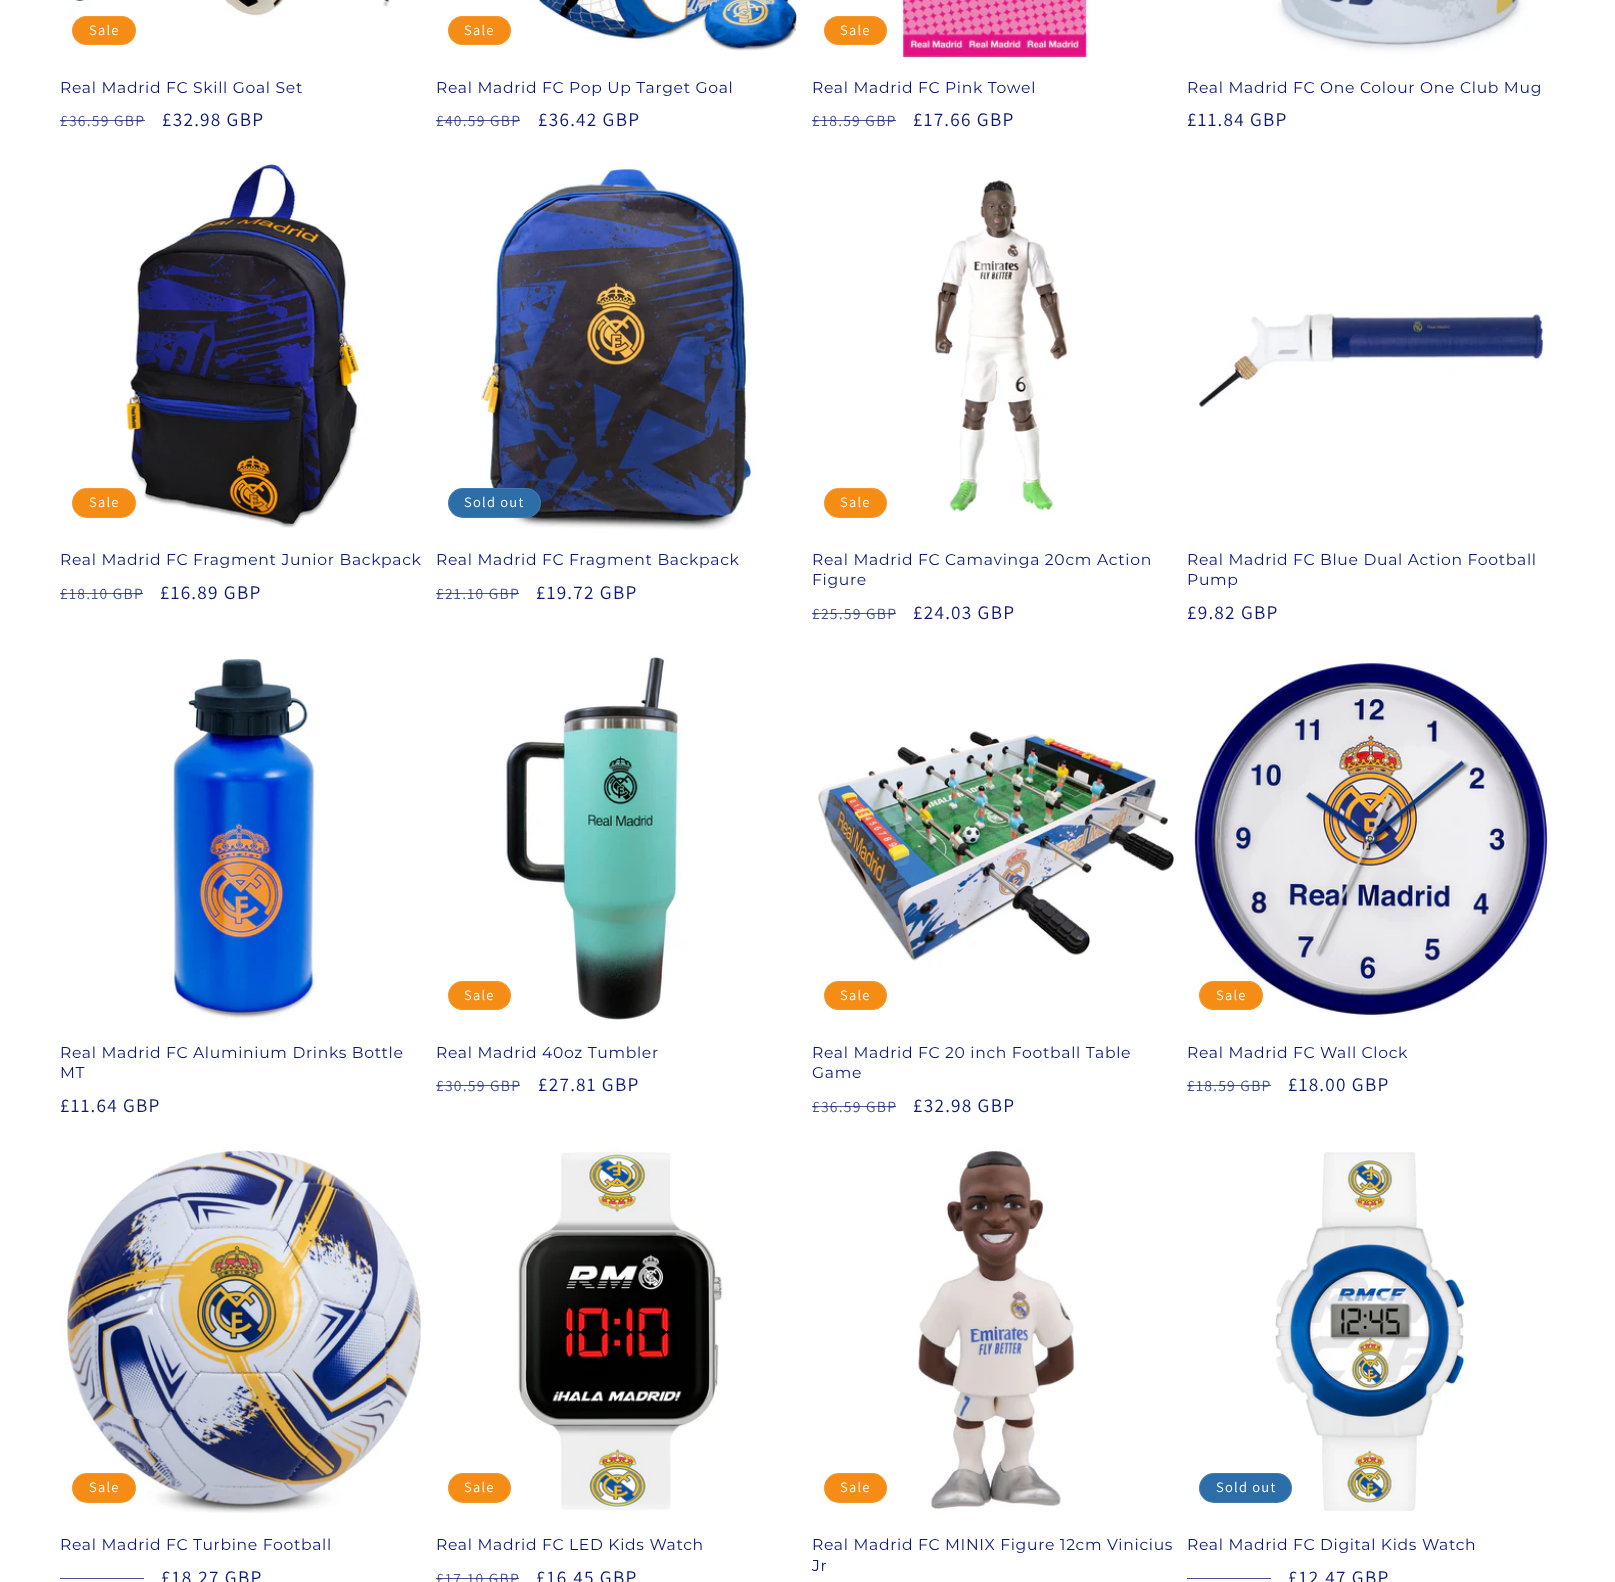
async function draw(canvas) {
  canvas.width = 1615;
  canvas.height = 1582;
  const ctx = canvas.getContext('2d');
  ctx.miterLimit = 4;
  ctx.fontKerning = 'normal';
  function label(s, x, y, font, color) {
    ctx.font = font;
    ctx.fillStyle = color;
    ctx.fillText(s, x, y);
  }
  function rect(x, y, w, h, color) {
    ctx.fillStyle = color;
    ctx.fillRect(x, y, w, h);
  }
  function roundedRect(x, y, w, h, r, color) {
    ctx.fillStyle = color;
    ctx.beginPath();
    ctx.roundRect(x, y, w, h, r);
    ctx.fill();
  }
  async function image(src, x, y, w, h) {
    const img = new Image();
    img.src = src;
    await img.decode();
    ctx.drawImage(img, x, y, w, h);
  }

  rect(0, 0, 1615, 1582, '#fff');
  await image('assets/img1.png', 60, 0, 368, 57);
  roundedRect(72, 16, 64, 29, 14.5, '#f58c16');
  ctx.beginPath();
  ctx.roundRect(72.5, 16.5, 63, 28, 14);
  ctx.strokeStyle = '#ffffff1a';
  ctx.stroke();
  ctx.letterSpacing = '1.25px';
  label('Sale', 89, 35, '14.5px Assistant', '#fff');
  ctx.letterSpacing = '0.7px';
  label('Real Madrid FC Skill Goal Set', 60, 93, '15.6px Montserrat', '#0c1a74');
  ctx.letterSpacing = '1.25px';
  label('£36.59 GBP', 60, 126, '15.6px Assistant', '#495397');
  rect(60, 120, 85, 1, '#0c1a74bf');
  label('£32.98 GBP', 162, 126, '19.25px Assistant', '#0c1a74');
  await image('assets/img2.png', 436, 0, 368, 57);
  roundedRect(448, 16, 63, 29, 14.5, '#f58c16');
  ctx.beginPath();
  ctx.roundRect(448.5, 16.5, 62, 28, 14);
  ctx.stroke();
  label('Sale', 464, 35, '14.5px Assistant', '#fff');
  ctx.letterSpacing = '0.7px';
  label('Real Madrid FC Pop Up Target Goal', 436, 93, '15.6px Montserrat', '#0c1a74');
  ctx.letterSpacing = '1.25px';
  label('£40.59 GBP', 436, 126, '15.6px Assistant', '#495397');
  rect(436, 120, 84, 1, '#0c1a74bf');
  label('£36.42 GBP', 538, 126, '19.25px Assistant', '#0c1a74');
  await image('assets/img3.png', 812, 0, 367, 58);
  roundedRect(824, 16, 63, 29, 14.5, '#f58c16');
  ctx.beginPath();
  ctx.roundRect(824.5, 16.5, 62, 28, 14);
  ctx.stroke();
  label('Sale', 840, 35, '14.5px Assistant', '#fff');
  ctx.letterSpacing = '0.7px';
  label('Real Madrid FC Pink Towel', 812, 93, '15.6px Montserrat', '#0c1a74');
  ctx.letterSpacing = '1.25px';
  label('£18.59 GBP', 812, 126, '15.6px Assistant', '#495397');
  rect(812, 120, 84, 1, '#0c1a74bf');
  label('£17.66 GBP', 913, 126, '19.25px Assistant', '#0c1a74');
  await image('assets/img4.png', 1187, 0, 368, 58);
  ctx.letterSpacing = '0.7px';
  label('Real Madrid FC One Colour One Club Mug', 1187, 93, '15.6px Montserrat', '#0c1a74');
  ctx.letterSpacing = '1.25px';
  label('£11.84 GBP', 1187, 126, '19.25px Assistant', '#0c1a74');
  await image('assets/img5.png', 60, 162, 368, 368);
  roundedRect(72, 488, 64, 30, 15, '#f58c16');
  ctx.beginPath();
  ctx.roundRect(72.5, 488.5, 63, 29, 14.5);
  ctx.stroke();
  label('Sale', 89, 507, '14.5px Assistant', '#fff');
  ctx.letterSpacing = '0.7px';
  label('Real Madrid FC Fragment Junior Backpack', 60, 565, '15.6px Montserrat', '#0c1a74');
  ctx.letterSpacing = '1.25px';
  label('£18.10 GBP', 60, 599, '15.6px Assistant', '#495397');
  rect(60, 593, 83, 1, '#0c1a74bf');
  label('£16.89 GBP', 160, 599, '19.25px Assistant', '#0c1a74');
  await image('assets/img6.png', 436, 162, 368, 368);
  roundedRect(448, 488, 93, 30, 15, '#2d6da8');
  ctx.beginPath();
  ctx.roundRect(448.5, 488.5, 92, 29, 14.5);
  ctx.stroke();
  label('Sold out', 464, 507, '14.5px Assistant', '#fff');
  ctx.letterSpacing = '0.7px';
  label('Real Madrid FC Fragment Backpack', 436, 565, '15.6px Montserrat', '#0c1a74');
  ctx.letterSpacing = '1.25px';
  label('£21.10 GBP', 436, 599, '15.6px Assistant', '#495397');
  rect(436, 593, 83, 1, '#0c1a74bf');
  label('£19.72 GBP', 536, 599, '19.25px Assistant', '#0c1a74');
  await image('assets/img7.png', 812, 162, 367, 368);
  roundedRect(824, 488, 63, 30, 15, '#f58c16');
  ctx.beginPath();
  ctx.roundRect(824.5, 488.5, 62, 29, 14.5);
  ctx.stroke();
  label('Sale', 840, 507, '14.5px Assistant', '#fff');
  ctx.letterSpacing = '0.7px';
  label('Real Madrid FC Camavinga 20cm Action', 812, 565, '15.6px Montserrat', '#0c1a74');
  label('Figure', 812, 585, '15.6px Montserrat', '#0c1a74');
  ctx.letterSpacing = '1.25px';
  label('£25.59 GBP', 812, 619, '15.6px Assistant', '#495397');
  rect(812, 613, 84, 1, '#0c1a74bf');
  label('£24.03 GBP', 913, 619, '19.25px Assistant', '#0c1a74');
  await image('assets/img8.png', 1187, 162, 368, 368);
  ctx.letterSpacing = '0.7px';
  label('Real Madrid FC Blue Dual Action Football', 1187, 565, '15.6px Montserrat', '#0c1a74');
  label('Pump', 1187, 585, '15.6px Montserrat', '#0c1a74');
  ctx.letterSpacing = '1.25px';
  label('£9.82 GBP', 1187, 619, '19.25px Assistant', '#0c1a74');
  await image('assets/img9.png', 60, 655, 368, 367);
  ctx.letterSpacing = '0.7px';
  label('Real Madrid FC Aluminium Drinks Bottle', 60, 1058, '15.6px Montserrat', '#0c1a74');
  label('MT', 60, 1078, '15.6px Montserrat', '#0c1a74');
  ctx.letterSpacing = '1.25px';
  label('£11.64 GBP', 60, 1112, '19.25px Assistant', '#0c1a74');
  await image('assets/img10.png', 436, 655, 368, 367);
  roundedRect(448, 981, 63, 29, 14.5, '#f58c16');
  ctx.beginPath();
  ctx.roundRect(448.5, 981.5, 62, 28, 14);
  ctx.stroke();
  label('Sale', 464, 1000, '14.5px Assistant', '#fff');
  ctx.letterSpacing = '0.7px';
  label('Real Madrid 40oz Tumbler', 436, 1058, '15.6px Montserrat', '#0c1a74');
  ctx.letterSpacing = '1.25px';
  label('£30.59 GBP', 436, 1091, '15.6px Assistant', '#495397');
  rect(436, 1085, 84, 1, '#0c1a74bf');
  label('£27.81 GBP', 538, 1091, '19.25px Assistant', '#0c1a74');
  await image('assets/img11.png', 812, 655, 367, 367);
  roundedRect(824, 981, 63, 29, 14.5, '#f58c16');
  ctx.beginPath();
  ctx.roundRect(824.5, 981.5, 62, 28, 14);
  ctx.stroke();
  label('Sale', 840, 1000, '14.5px Assistant', '#fff');
  ctx.letterSpacing = '0.7px';
  label('Real Madrid FC 20 inch Football Table', 812, 1058, '15.6px Montserrat', '#0c1a74');
  label('Game', 812, 1078, '15.6px Montserrat', '#0c1a74');
  ctx.letterSpacing = '1.25px';
  label('£36.59 GBP', 812, 1112, '15.6px Assistant', '#495397');
  rect(812, 1106, 84, 1, '#0c1a74bf');
  label('£32.98 GBP', 913, 1112, '19.25px Assistant', '#0c1a74');
  await image('assets/img12.png', 1187, 655, 368, 367);
  roundedRect(1199, 981, 64, 29, 14.5, '#f58c16');
  ctx.beginPath();
  ctx.roundRect(1199.5, 981.5, 63, 28, 14);
  ctx.stroke();
  label('Sale', 1216, 1000, '14.5px Assistant', '#fff');
  ctx.letterSpacing = '0.7px';
  label('Real Madrid FC Wall Clock', 1187, 1058, '15.6px Montserrat', '#0c1a74');
  ctx.letterSpacing = '1.25px';
  label('£18.59 GBP', 1187, 1091, '15.6px Assistant', '#495397');
  rect(1187, 1085, 84, 1, '#0c1a74bf');
  label('£18.00 GBP', 1288, 1091, '19.25px Assistant', '#0c1a74');
  await image('assets/img13.png', 60, 1147, 368, 368);
  roundedRect(72, 1473, 64, 30, 15, '#f58c16');
  ctx.beginPath();
  ctx.roundRect(72.5, 1473.5, 63, 29, 14.5);
  ctx.stroke();
  label('Sale', 89, 1492, '14.5px Assistant', '#fff');
  ctx.letterSpacing = '0.7px';
  label('Real Madrid FC Turbine Football', 60, 1550, '15.6px Montserrat', '#0c1a74');
  rect(60, 1578, 84, 1, '#0c1a74bf');
  ctx.letterSpacing = '1.25px';
  label('£18.27 GBP', 161, 1584, '19.25px Assistant', '#0c1a74');
  await image('assets/img14.png', 436, 1147, 368, 368);
  roundedRect(448, 1473, 63, 30, 15, '#f58c16');
  ctx.beginPath();
  ctx.roundRect(448.5, 1473.5, 62, 29, 14.5);
  ctx.stroke();
  label('Sale', 464, 1492, '14.5px Assistant', '#fff');
  ctx.letterSpacing = '0.7px';
  label('Real Madrid FC LED Kids Watch', 436, 1550, '15.6px Montserrat', '#0c1a74');
  ctx.letterSpacing = '1.25px';
  label('£17.10 GBP', 436, 1584, '15.6px Assistant', '#495397');
  rect(436, 1578, 83, 1, '#0c1a74bf');
  label('£16.45 GBP', 536, 1584, '19.25px Assistant', '#0c1a74');
  await image('assets/img15.png', 812, 1147, 367, 368);
  roundedRect(824, 1473, 63, 30, 15, '#f58c16');
  ctx.beginPath();
  ctx.roundRect(824.5, 1473.5, 62, 29, 14.5);
  ctx.stroke();
  label('Sale', 840, 1492, '14.5px Assistant', '#fff');
  ctx.letterSpacing = '0.7px';
  label('Real Madrid FC MINIX Figure 12cm Vinicius', 812, 1550, '15.6px Montserrat', '#0c1a74');
  label('Jr', 812, 1571, '15.6px Montserrat', '#0c1a74');
  await image('assets/img16.png', 1187, 1147, 368, 368);
  roundedRect(1199, 1473, 93, 30, 15, '#2d6da8');
  ctx.beginPath();
  ctx.roundRect(1199.5, 1473.5, 92, 29, 14.5);
  ctx.stroke();
  ctx.letterSpacing = '1.25px';
  label('Sold out', 1216, 1492, '14.5px Assistant', '#fff');
  ctx.letterSpacing = '0.7px';
  label('Real Madrid FC Digital Kids Watch', 1187, 1550, '15.6px Montserrat', '#0c1a74');
  rect(1187, 1578, 84, 1, '#0c1a74bf');
  ctx.letterSpacing = '1.25px';
  label('£12.47 GBP', 1288, 1584, '19.25px Assistant', '#0c1a74');
}

draw(document.querySelector('canvas'));
